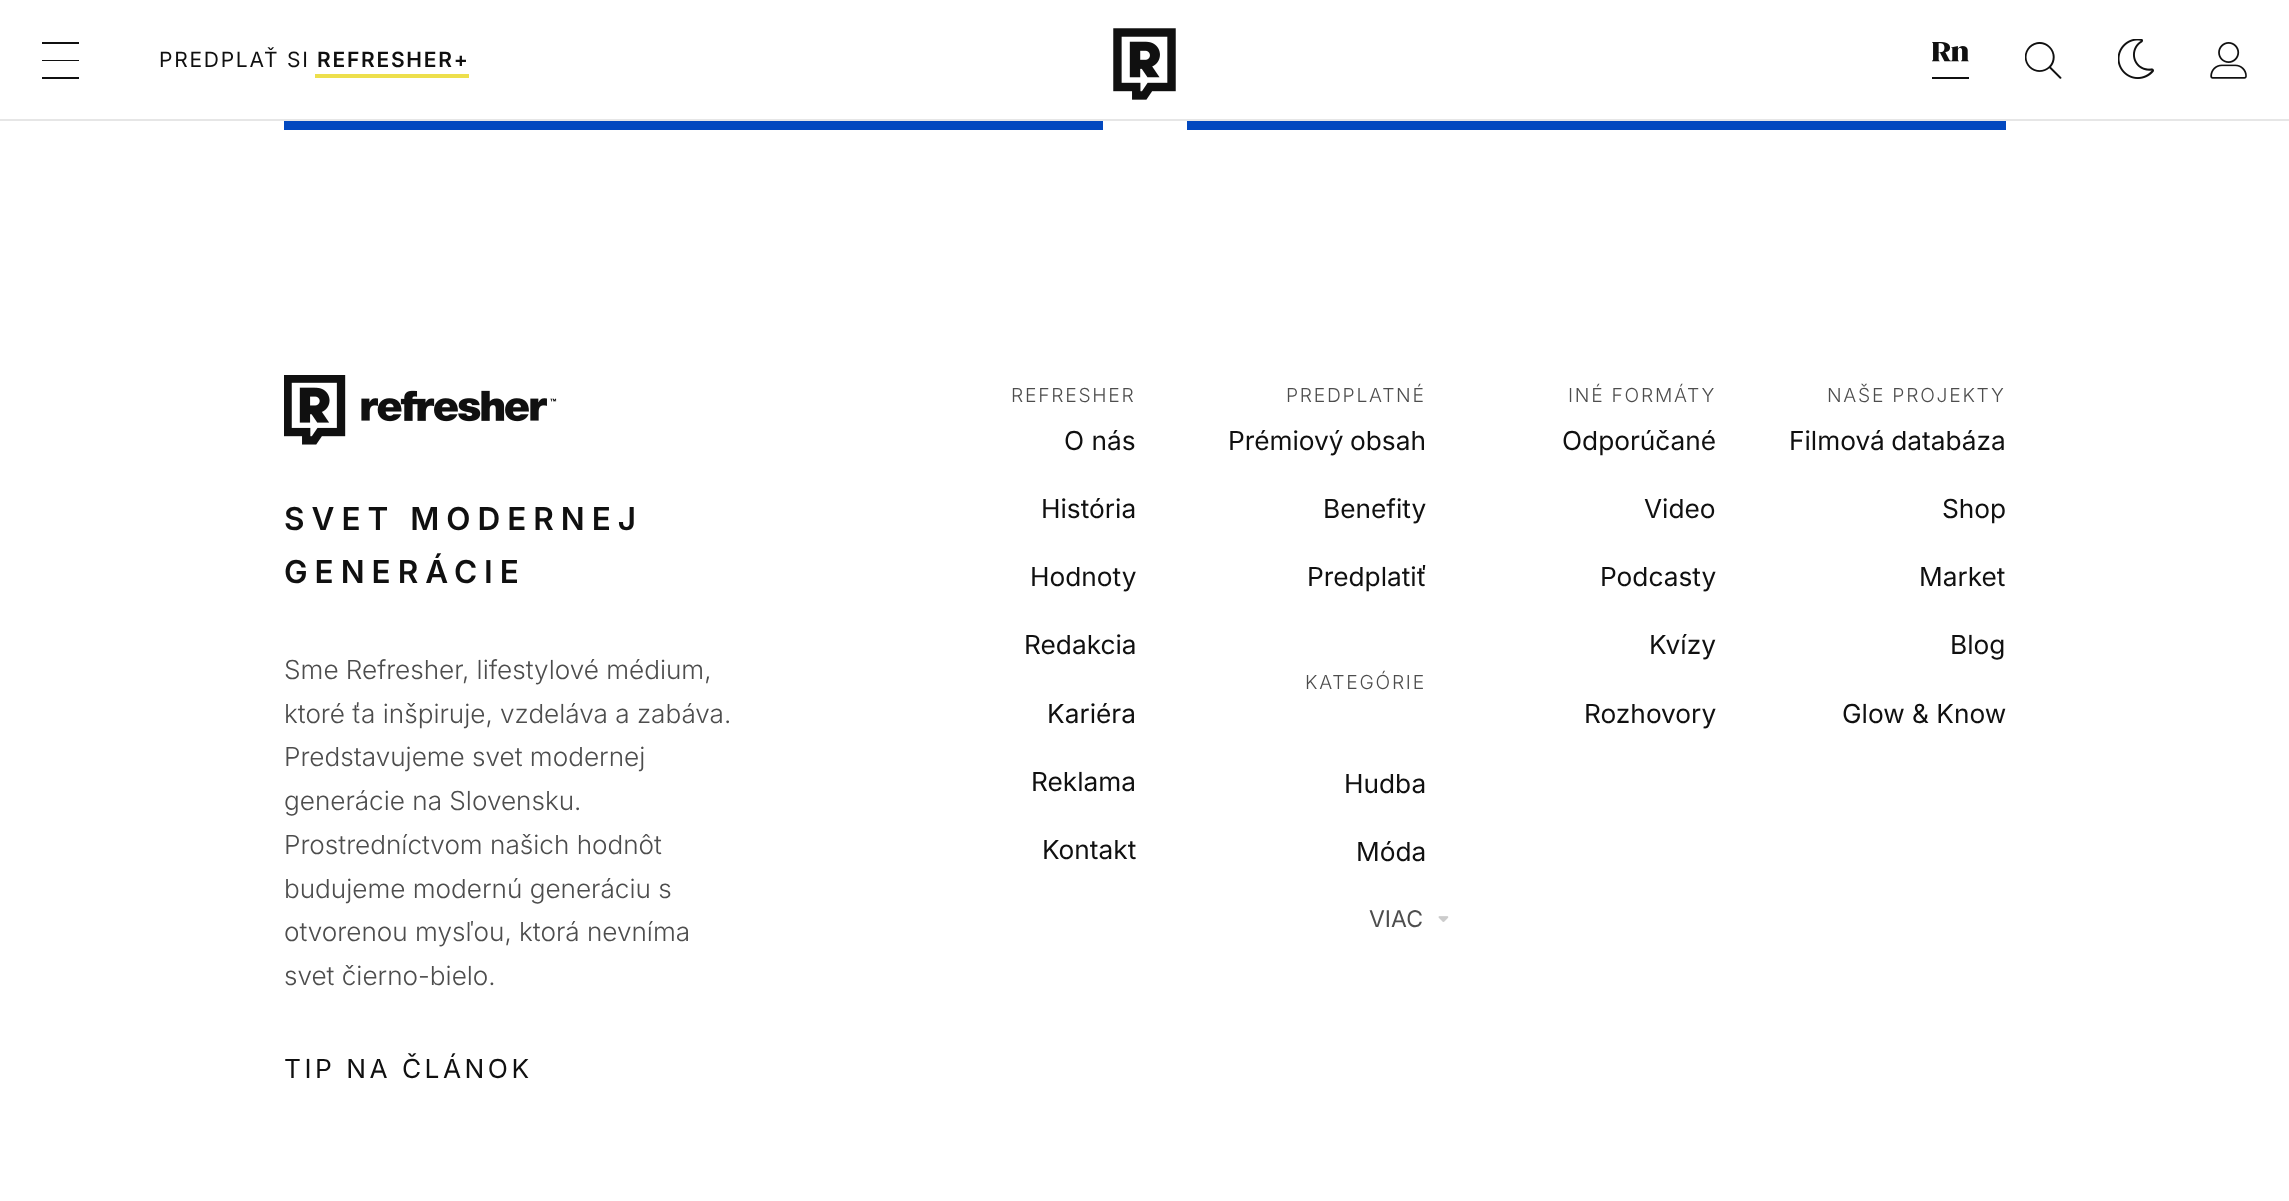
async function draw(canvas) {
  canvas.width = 2289;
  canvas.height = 1201;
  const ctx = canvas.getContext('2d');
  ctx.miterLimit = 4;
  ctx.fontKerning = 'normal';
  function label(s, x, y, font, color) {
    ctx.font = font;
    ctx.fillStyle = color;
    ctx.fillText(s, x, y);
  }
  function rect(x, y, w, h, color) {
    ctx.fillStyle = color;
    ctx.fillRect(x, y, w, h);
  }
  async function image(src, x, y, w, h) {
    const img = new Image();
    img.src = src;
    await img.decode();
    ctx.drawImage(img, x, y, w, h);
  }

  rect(0, 0, 2289, 1201, '#fff');
  rect(0, 119, 2289, 2, '#e6e6e6');
  rect(42, 42, 37, 2, '#101010');
  rect(42, 60, 37, 1, '#101010');
  rect(42, 77, 37, 2, '#101010');
  ctx.letterSpacing = '1.75px';
  label('PREDPLAŤ SI', 159, 67, '21px Inter', '#101010');
  label('REFRESHER+', 317, 67, '600 21px Inter', '#101010');
  rect(315, 74, 154, 4, '#eddf4c');
  await image('assets/img1.png', 1113, 28, 63, 72);
  await image('assets/img2.png', 1932, 42, 37, 37);
  await image('assets/img3.png', 2025, 42, 37, 37);
  await image('assets/img4.png', 2118, 39, 36, 40);
  await image('assets/img5.png', 2210, 42, 37, 37);
  rect(284, 121, 819, 9, '#0248bf');
  rect(1187, 121, 819, 9, '#0248bf');
  await image('assets/img6.png', 284, 375, 273, 70);
  ctx.letterSpacing = '7px';
  label('SVET MODERNEJ', 284, 530, '600 31.5px Inter', '#101010');
  label('GENERÁCIE', 284, 583, '600 31.5px Inter', '#101010');
  ctx.letterSpacing = '0px';
  label('Sme Refresher, lifestylové médium,', 284, 679, '300 26.25px Inter', '#4d4d4d');
  label('ktoré ťa inšpiruje, vzdeláva a zabáva.', 284, 723, '300 26.25px Inter', '#4d4d4d');
  label('Predstavujeme svet modernej', 284, 766, '300 26.25px Inter', '#4d4d4d');
  label('generácie na Slovensku.', 284, 810, '300 26.25px Inter', '#4d4d4d');
  label('Prostredníctvom našich hodnôt', 284, 854, '300 26.25px Inter', '#4d4d4d');
  label('budujeme modernú generáciu s', 284, 898, '300 26.25px Inter', '#4d4d4d');
  label('otvorenou mysľou, ktorá nevníma', 284, 941, '300 26.25px Inter', '#4d4d4d');
  label('svet čierno-bielo.', 284, 985, '300 26.25px Inter', '#4d4d4d');
  ctx.letterSpacing = '3.5px';
  label('TIP NA ČLÁNOK', 284, 1078, '26.25px Inter', '#101010');
  ctx.letterSpacing = '1.75px';
  label('REFRESHER', 1011, 402, '300 19.25px "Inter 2"', '#4d4d4d');
  ctx.letterSpacing = '0px';
  label('O nás', 1064, 450, '26.25px Inter', '#101010');
  label('História', 1041, 518, '26.25px Inter', '#101010');
  label('Hodnoty', 1030, 586, '26.25px Inter', '#101010');
  label('Redakcia', 1024, 654, '26.25px Inter', '#101010');
  label('Kariéra', 1047, 723, '26.25px Inter', '#101010');
  label('Reklama', 1031, 791, '26.25px Inter', '#101010');
  label('Kontakt', 1042, 859, '26.25px Inter', '#101010');
  ctx.letterSpacing = '1.75px';
  label('PREDPLATNÉ', 1286, 402, '300 19.25px "Inter 2"', '#4d4d4d');
  ctx.letterSpacing = '0px';
  ctx.wordSpacing = '-1px';
  label('Prémiový obsah', 1228, 450, '26.25px Inter', '#101010');
  ctx.wordSpacing = '0px';
  label('Benefity', 1323, 518, '26.25px Inter', '#101010');
  label('Predplatiť', 1307, 586, '26.25px Inter', '#101010');
  ctx.letterSpacing = '1.75px';
  label('KATEGÓRIE', 1305, 689, '300 19.25px "Inter 2"', '#4d4d4d');
  ctx.letterSpacing = '0px';
  label('Hudba', 1344, 793, '26.25px Inter', '#101010');
  label('Móda', 1356, 861, '26.25px Inter', '#101010');
  label('VIAC', 1369, 927, '23px Inter', '#4d4d4d');
  await image('assets/img7.png', 1438, 916, 11, 6);
  ctx.letterSpacing = '1.75px';
  label('INÉ FORMÁTY', 1568, 402, '300 19.25px "Inter 2"', '#4d4d4d');
  ctx.letterSpacing = '0px';
  label('Odporúčané', 1562, 450, '26.25px Inter', '#101010');
  label('Video', 1644, 518, '26.25px Inter', '#101010');
  label('Podcasty', 1600, 586, '26.25px Inter', '#101010');
  label('Kvízy', 1649, 654, '26.25px Inter', '#101010');
  label('Rozhovory', 1584, 723, '26.25px Inter', '#101010');
  ctx.letterSpacing = '1.75px';
  label('NAŠE PROJEKTY', 1827, 402, '300 19.25px "Inter 2"', '#4d4d4d');
  ctx.letterSpacing = '0px';
  ctx.wordSpacing = '-1px';
  label('Filmová databáza', 1789, 450, '26.25px Inter', '#101010');
  ctx.wordSpacing = '0px';
  label('Shop', 1942, 518, '26.25px Inter', '#101010');
  label('Market', 1919, 586, '26.25px Inter', '#101010');
  label('Blog', 1950, 654, '26.25px Inter', '#101010');
  label('Glow & Know', 1842, 723, '26.25px Inter', '#101010');
}

draw(document.querySelector('canvas'));
